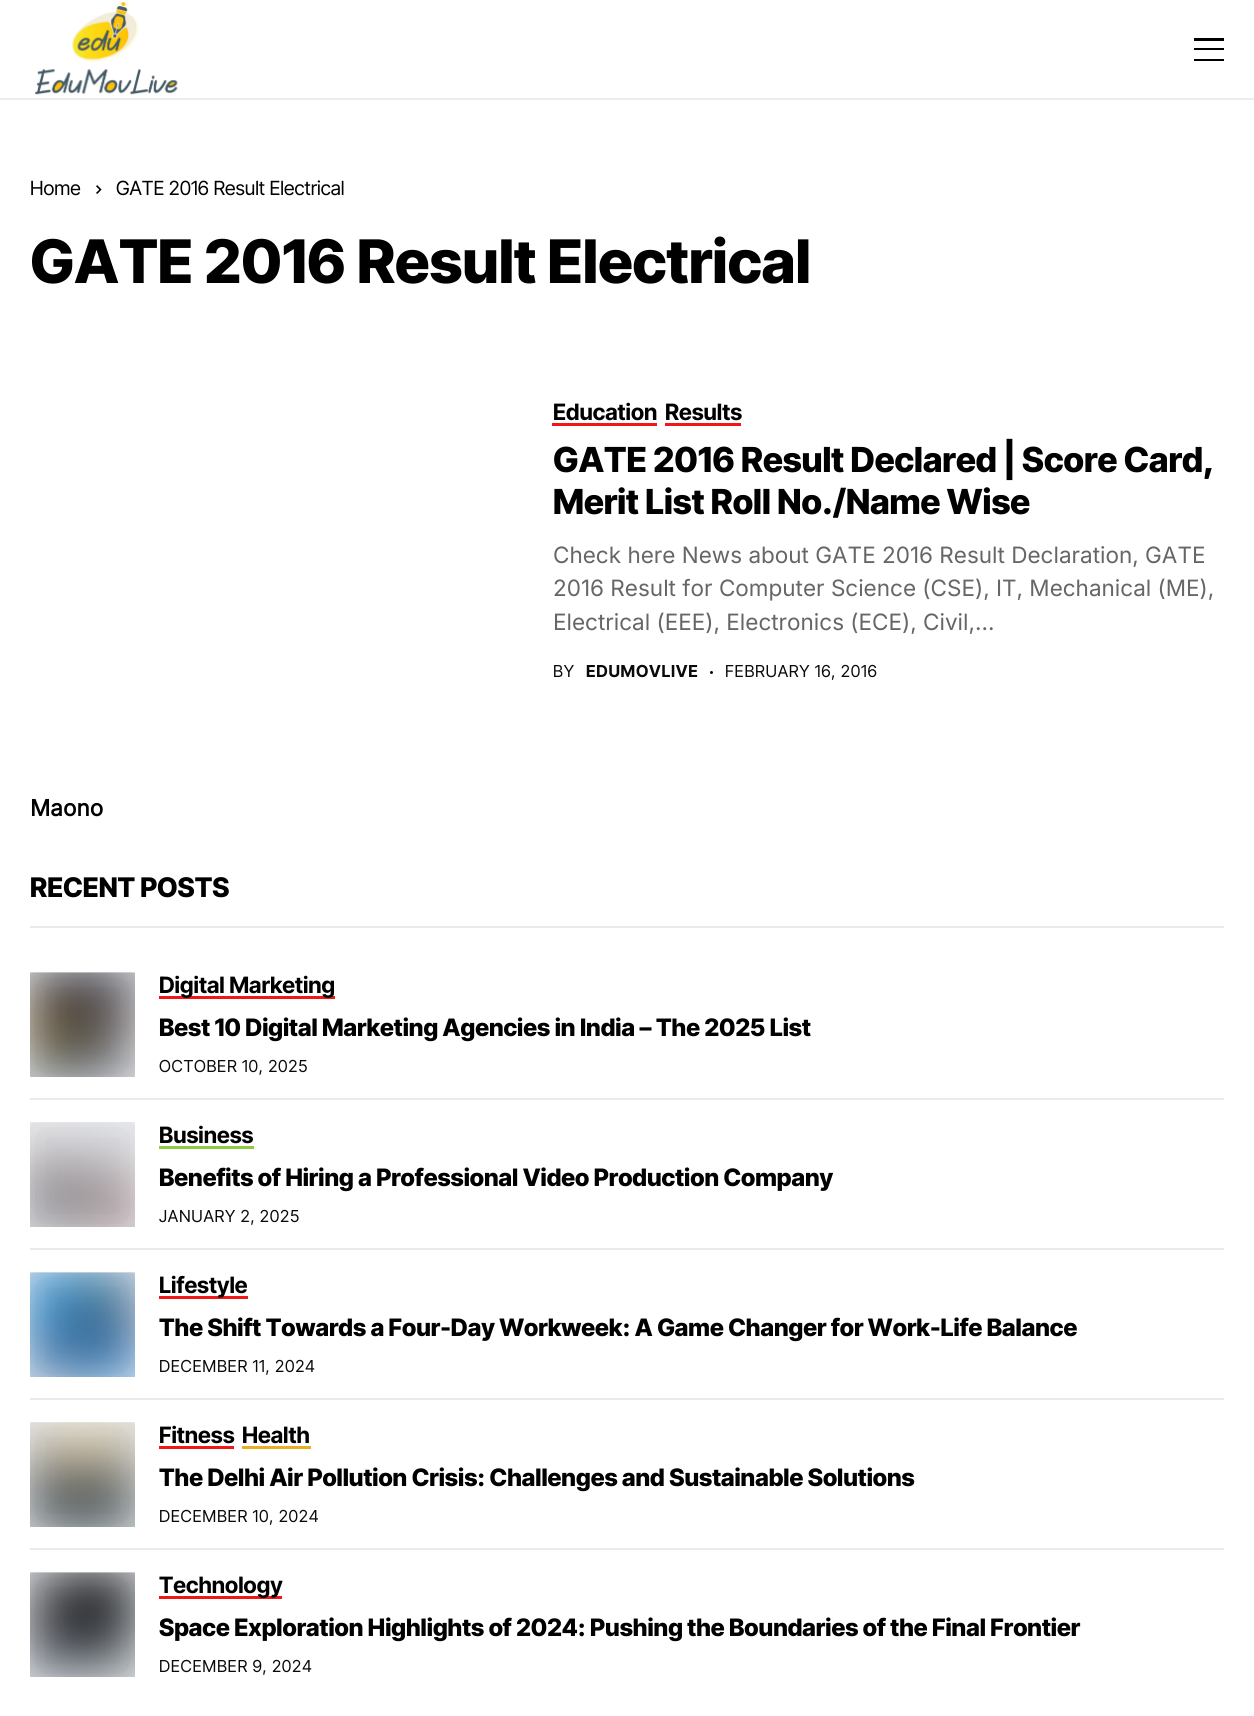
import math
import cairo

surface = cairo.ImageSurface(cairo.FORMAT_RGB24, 1254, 1716)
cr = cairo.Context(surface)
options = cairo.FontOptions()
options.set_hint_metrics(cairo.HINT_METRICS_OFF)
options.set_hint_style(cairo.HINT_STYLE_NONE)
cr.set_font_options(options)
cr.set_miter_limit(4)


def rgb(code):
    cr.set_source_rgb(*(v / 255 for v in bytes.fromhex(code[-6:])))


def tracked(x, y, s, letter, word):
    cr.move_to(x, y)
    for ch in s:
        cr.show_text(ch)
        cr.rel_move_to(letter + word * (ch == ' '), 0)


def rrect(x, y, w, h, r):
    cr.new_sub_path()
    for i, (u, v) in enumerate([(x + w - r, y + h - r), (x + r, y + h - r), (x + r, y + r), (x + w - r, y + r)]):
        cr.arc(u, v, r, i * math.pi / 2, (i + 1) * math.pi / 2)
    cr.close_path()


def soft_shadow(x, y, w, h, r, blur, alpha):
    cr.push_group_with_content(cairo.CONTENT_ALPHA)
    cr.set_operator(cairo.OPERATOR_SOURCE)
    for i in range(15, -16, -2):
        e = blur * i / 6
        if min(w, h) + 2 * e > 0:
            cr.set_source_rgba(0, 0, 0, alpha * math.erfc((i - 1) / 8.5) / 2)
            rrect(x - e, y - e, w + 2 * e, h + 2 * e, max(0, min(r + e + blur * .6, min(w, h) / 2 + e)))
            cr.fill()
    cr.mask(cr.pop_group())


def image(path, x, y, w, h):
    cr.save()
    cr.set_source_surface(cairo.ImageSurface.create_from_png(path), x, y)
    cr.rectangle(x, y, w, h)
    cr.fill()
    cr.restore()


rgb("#ffffff")
cr.paint()
rgb("#eeedeb")
cr.rectangle(0, 98, 1254, 2)
cr.fill()
image("img/1.png", 35, 2, 143, 93)
for x, y, w, h, color in [
    (1194, 38, 30, 3, "#000000"),
    (1194, 48, 30, 2, "#000000"),
    (1194, 59, 30, 2, "#000000"),
]:
    rgb(color)
    cr.rectangle(x, y, w, h)
    cr.fill()
image("img/2.png", 96, 185, 6, 9)
rgb("#f21717")
cr.rectangle(552, 423, 105, 3)
cr.fill()
cr.rectangle(665, 423, 76, 3)
cr.fill()
rgb("#0a0a0a")
cr.arc(711.5, 672.5, 1.5, 0, 2 * math.pi)
cr.fill()
rgb("#e9ecef")
cr.rectangle(30, 926, 1194, 2)
cr.fill()
cr.save()
cr.rectangle(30, 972, 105, 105)
cr.clip()
rgb("#ced4da")
soft_shadow(30, 972, 105, 107, 0, 30, 1)
cr.restore()
image("img/3.png", 30, 972, 105, 105)
rgb("#f21717")
cr.rectangle(159, 996, 176, 3)
cr.fill()
rgb("#e9ecef")
cr.rectangle(30, 1098, 1194, 2)
cr.fill()
cr.save()
cr.rectangle(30, 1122, 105, 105)
cr.clip()
rgb("#ced4da")
soft_shadow(30, 1122, 105, 107, 0, 30, 1)
cr.restore()
image("img/4.png", 30, 1122, 105, 105)
rgb("#8ccc3f")
cr.rectangle(159, 1146, 95, 3)
cr.fill()
rgb("#e9ecef")
cr.rectangle(30, 1248, 1194, 2)
cr.fill()
cr.save()
cr.rectangle(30, 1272, 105, 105)
cr.clip()
rgb("#ced4da")
soft_shadow(30, 1272, 105, 107, 0, 30, 1)
cr.restore()
image("img/5.png", 30, 1272, 105, 105)
rgb("#f21717")
cr.rectangle(159, 1296, 89, 3)
cr.fill()
rgb("#e9ecef")
cr.rectangle(30, 1398, 1194, 2)
cr.fill()
cr.save()
cr.rectangle(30, 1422, 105, 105)
cr.clip()
rgb("#ced4da")
soft_shadow(30, 1422, 105, 107, 0, 30, 1)
cr.restore()
image("img/6.png", 30, 1422, 105, 105)
for x, y, w, h, color in [
    (159, 1446, 75, 3, "#f21717"),
    (242, 1446, 69, 3, "#e8af20"),
    (30, 1548, 1194, 2, "#e9ecef"),
]:
    rgb(color)
    cr.rectangle(x, y, w, h)
    cr.fill()
cr.save()
cr.rectangle(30, 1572, 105, 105)
cr.clip()
rgb("#ced4da")
soft_shadow(30, 1572, 105, 107, 0, 30, 1)
cr.restore()
image("img/7.png", 30, 1572, 105, 105)
rgb("#f21717")
cr.rectangle(159, 1596, 123, 3)
cr.fill()
cr.select_font_face("Inter Tight")
cr.set_font_size(19.5)
rgb("#000000")
cr.move_to(30, 195)
cr.show_text("Home")
cr.move_to(116, 195)
cr.show_text("GATE 2016 Result Electrical")
cr.select_font_face("Inter Tight ExtraBold")
cr.set_font_size(60)
cr.move_to(30, 283)
cr.show_text("GATE 2016 Result Electrical")
cr.select_font_face("Inter Tight", cairo.FONT_SLANT_NORMAL, cairo.FONT_WEIGHT_BOLD)
cr.set_font_size(22.5)
cr.move_to(553, 420)
cr.show_text("Education")
cr.move_to(665, 420)
cr.show_text("Results")
cr.select_font_face("Inter Tight ExtraBold")
cr.set_font_size(34.5)
cr.move_to(553, 472)
cr.show_text("GATE 2016 Result Declared | Score Card,")
cr.move_to(553, 514)
cr.show_text("Merit List Roll No./Name Wise")
cr.select_font_face("Inter")
cr.set_font_size(22.5)
rgb("#666666")
for x, y, s in [
    (553, 563, "Check here News about GATE 2016 Result Declaration, GATE"),
    (553, 596, "2016 Result for Computer Science (CSE), IT, Mechanical (ME),"),
    (553, 630, "Electrical (EEE), Electronics (ECE), Civil,..."),
]:
    cr.move_to(x, y)
    cr.show_text(s)
cr.select_font_face("Inter Tight")
cr.set_font_size(16.5)
rgb("#0a0a0a")
tracked(553, 677, "BY", 0.7, 0)
cr.select_font_face("Inter Tight", cairo.FONT_SLANT_NORMAL, cairo.FONT_WEIGHT_BOLD)
tracked(586, 677, "EDUMOVLIVE", 0.7, 0)
cr.select_font_face("Inter Tight")
tracked(725, 677, "FEBRUARY 16, 2016", 0.7, 0)
cr.select_font_face("Inter", cairo.FONT_SLANT_NORMAL, cairo.FONT_WEIGHT_BOLD)
cr.set_font_size(22.5)
rgb("#000000")
cr.move_to(30, 816)
cr.show_text("Maono")
cr.select_font_face("Inter Tight ExtraBold")
cr.set_font_size(27)
cr.move_to(30, 897)
cr.show_text("RECENT POSTS")
cr.select_font_face("Inter Tight", cairo.FONT_SLANT_NORMAL, cairo.FONT_WEIGHT_BOLD)
cr.set_font_size(22.5)
cr.move_to(159, 993)
cr.show_text("Digital Marketing")
cr.select_font_face("Inter Tight ExtraBold")
cr.set_font_size(24)
cr.move_to(159, 1036)
cr.show_text("Best 10 Digital Marketing Agencies in India – The 2025 List")
cr.select_font_face("Inter Tight")
cr.set_font_size(16.5)
rgb("#0a0a0a")
tracked(159, 1072, "OCTOBER 10, 2025", 0.7, 0)
cr.select_font_face("Inter Tight", cairo.FONT_SLANT_NORMAL, cairo.FONT_WEIGHT_BOLD)
cr.set_font_size(22.5)
rgb("#000000")
cr.move_to(159, 1143)
cr.show_text("Business")
cr.select_font_face("Inter Tight ExtraBold")
cr.set_font_size(24)
cr.move_to(159, 1186)
cr.show_text("Benefits of Hiring a Professional Video Production Company")
cr.select_font_face("Inter Tight")
cr.set_font_size(16.5)
rgb("#0a0a0a")
tracked(159, 1222, "JANUARY 2, 2025", 0.7, 0)
cr.select_font_face("Inter Tight", cairo.FONT_SLANT_NORMAL, cairo.FONT_WEIGHT_BOLD)
cr.set_font_size(22.5)
rgb("#000000")
cr.move_to(159, 1293)
cr.show_text("Lifestyle")
cr.select_font_face("Inter Tight ExtraBold")
cr.set_font_size(24)
cr.move_to(159, 1336)
cr.show_text("The Shift Towards a Four-Day Workweek: A Game Changer for Work-Life Balance")
cr.select_font_face("Inter Tight")
cr.set_font_size(16.5)
rgb("#0a0a0a")
tracked(159, 1372, "DECEMBER 11, 2024", 0.7, 0)
cr.select_font_face("Inter Tight", cairo.FONT_SLANT_NORMAL, cairo.FONT_WEIGHT_BOLD)
cr.set_font_size(22.5)
rgb("#000000")
cr.move_to(159, 1443)
cr.show_text("Fitness")
cr.move_to(242, 1443)
cr.show_text("Health")
cr.select_font_face("Inter Tight ExtraBold")
cr.set_font_size(24)
cr.move_to(159, 1486)
cr.show_text("The Delhi Air Pollution Crisis: Challenges and Sustainable Solutions")
cr.select_font_face("Inter Tight")
cr.set_font_size(16.5)
rgb("#0a0a0a")
tracked(159, 1522, "DECEMBER 10, 2024", 0.7, 0)
cr.select_font_face("Inter Tight", cairo.FONT_SLANT_NORMAL, cairo.FONT_WEIGHT_BOLD)
cr.set_font_size(22.5)
rgb("#000000")
cr.move_to(159, 1593)
cr.show_text("Technology")
cr.select_font_face("Inter Tight ExtraBold")
cr.set_font_size(24)
cr.move_to(159, 1636)
cr.show_text("Space Exploration Highlights of 2024: Pushing the Boundaries of the Final Frontier")
cr.select_font_face("Inter Tight")
cr.set_font_size(16.5)
rgb("#0a0a0a")
tracked(159, 1672, "DECEMBER 9, 2024", 0.7, 0)
surface.write_to_png("page.png")
